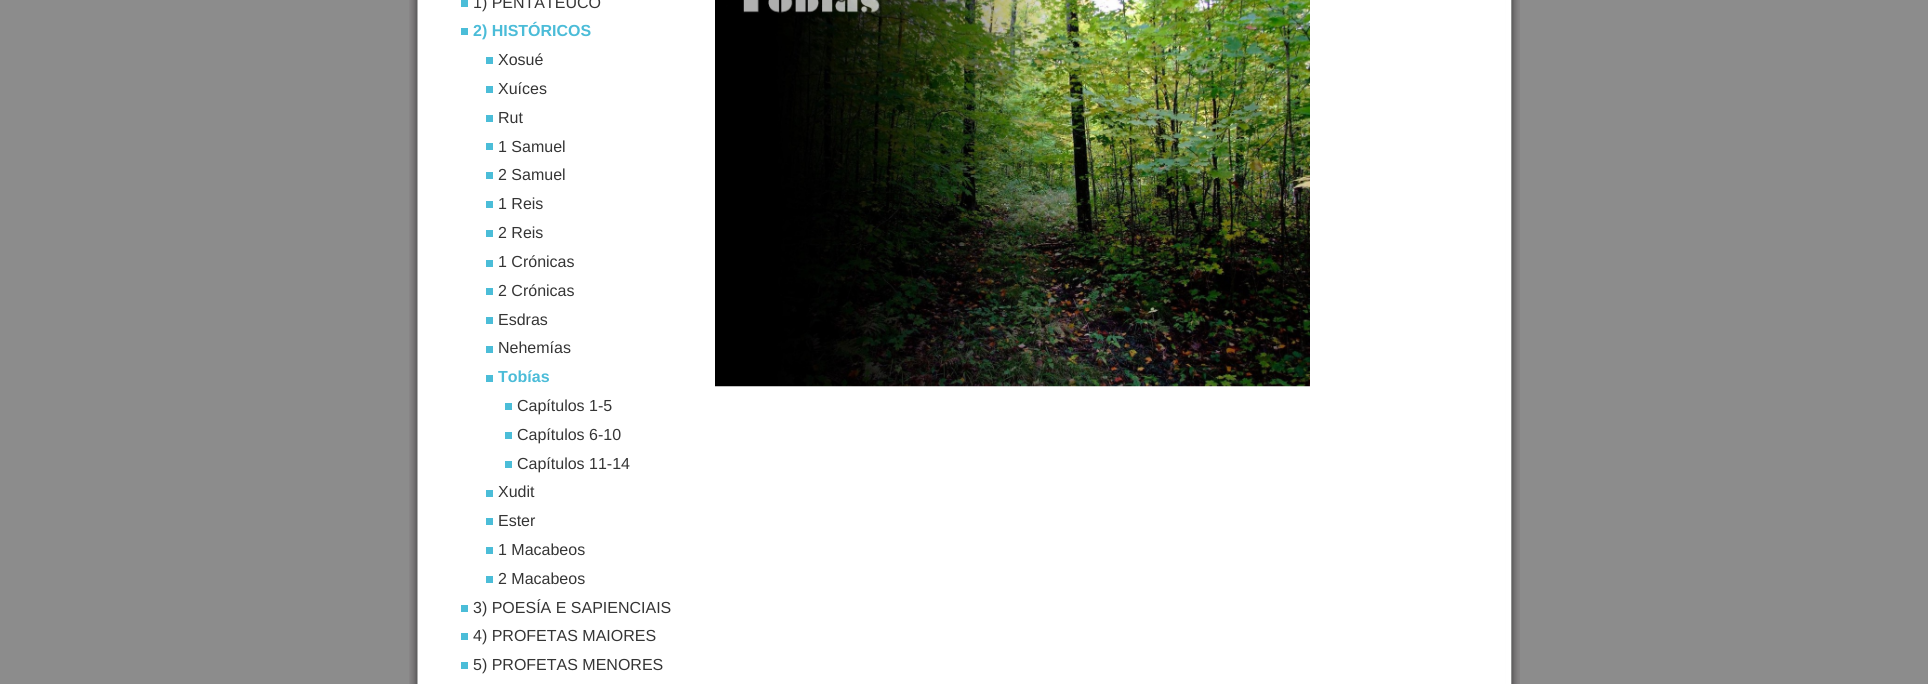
import math
import cairo

surface = cairo.ImageSurface(cairo.FORMAT_RGB24, 1928, 684)
cr = cairo.Context(surface)
options = cairo.FontOptions()
options.set_hint_metrics(cairo.HINT_METRICS_OFF)
options.set_hint_style(cairo.HINT_STYLE_NONE)
cr.set_font_options(options)
cr.set_miter_limit(4)


def rgb(code):
    cr.set_source_rgb(*(v / 255 for v in bytes.fromhex(code[-6:])))


def image(path, x, y, w, h):
    cr.save()
    cr.set_source_surface(cairo.ImageSurface.create_from_png(path), x, y)
    cr.rectangle(x, y, w, h)
    cr.fill()
    cr.restore()


rgb("#8c8c8c")
cr.paint()
image("img/1.png", 409, 0, 1111, 251)
image("img/2.png", 409, 251, 1111, 433)
for x, y, w, h, color in [
    (461, 0, 7, 7, "#4bbdd8"),
    (461, 28, 7, 7, "#4bbdd8"),
    (486, 57, 7, 7, "#4bbdd8"),
    (486, 86, 7, 7, "#4bbdd8"),
    (486, 115, 7, 7, "#4bbdd8"),
    (486, 143, 7, 7, "#4bbdd8"),
    (486, 172, 7, 7, "#4bbdd8"),
    (486, 201, 7, 7, "#4bbdd8"),
    (486, 230, 7, 7, "#4bbdd8"),
    (486, 260, 7, 7, "#4bbdd8"),
    (486, 288, 7, 7, "#4bbdd8"),
    (486, 317, 7, 7, "#4bbdd8"),
    (486, 346, 7, 7, "#4bbdd8"),
    (486, 375, 7, 7, "#4bbdd8"),
    (505, 403, 7, 7, "#4bbdd8"),
    (505, 432, 7, 7, "#4bbdd8"),
    (505, 461, 7, 7, "#4bbdd8"),
    (486, 490, 7, 7, "#4bbdd8"),
    (486, 518, 7, 7, "#4bbdd8"),
    (486, 547, 7, 7, "#4bbdd8"),
    (486, 576, 7, 7, "#4bbdd8"),
    (461, 605, 7, 7, "#4bbdd8"),
    (461, 633, 7, 7, "#4bbdd8"),
    (461, 662, 7, 7, "#4bbdd8"),
]:
    rgb(color)
    cr.rectangle(x, y, w, h)
    cr.fill()
image("img/3.png", 715, 0, 595, 387)
cr.select_font_face("Liberation Sans")
cr.set_font_size(16)
rgb("#353535")
cr.move_to(473, 8)
cr.show_text("1) PENTATEUCO")
cr.select_font_face("Liberation Sans", cairo.FONT_SLANT_NORMAL, cairo.FONT_WEIGHT_BOLD)
rgb("#4bbcd8")
cr.move_to(473, 36)
cr.show_text("2) HISTÓRICOS")
cr.select_font_face("Liberation Sans")
rgb("#353535")
for x, y, s in [
    (498, 65, "Xosué"),
    (498, 94, "Xuíces"),
    (498, 123, "Rut"),
    (498, 152, "1 Samuel"),
    (498, 180, "2 Samuel"),
    (498, 209, "1 Reis"),
    (498, 238, "2 Reis"),
    (498, 267, "1 Crónicas"),
    (498, 296, "2 Crónicas"),
    (498, 325, "Esdras"),
    (498, 353, "Nehemías"),
]:
    cr.move_to(x, y)
    cr.show_text(s)
cr.select_font_face("Liberation Sans", cairo.FONT_SLANT_NORMAL, cairo.FONT_WEIGHT_BOLD)
rgb("#4bbcd8")
cr.move_to(498, 382)
cr.show_text("Tobías")
cr.select_font_face("Liberation Sans")
rgb("#353535")
for x, y, s in [
    (517, 411, "Capítulos 1-5"),
    (517, 440, "Capítulos 6-10"),
    (517, 469, "Capítulos 11-14"),
    (498, 497, "Xudit"),
    (498, 526, "Ester"),
    (498, 555, "1 Macabeos"),
    (498, 584, "2 Macabeos"),
    (473, 613, "3) POESÍA E SAPIENCIAIS"),
    (473, 641, "4) PROFETAS MAIORES"),
    (473, 670, "5) PROFETAS MENORES"),
]:
    cr.move_to(x, y)
    cr.show_text(s)
surface.write_to_png("page.png")
